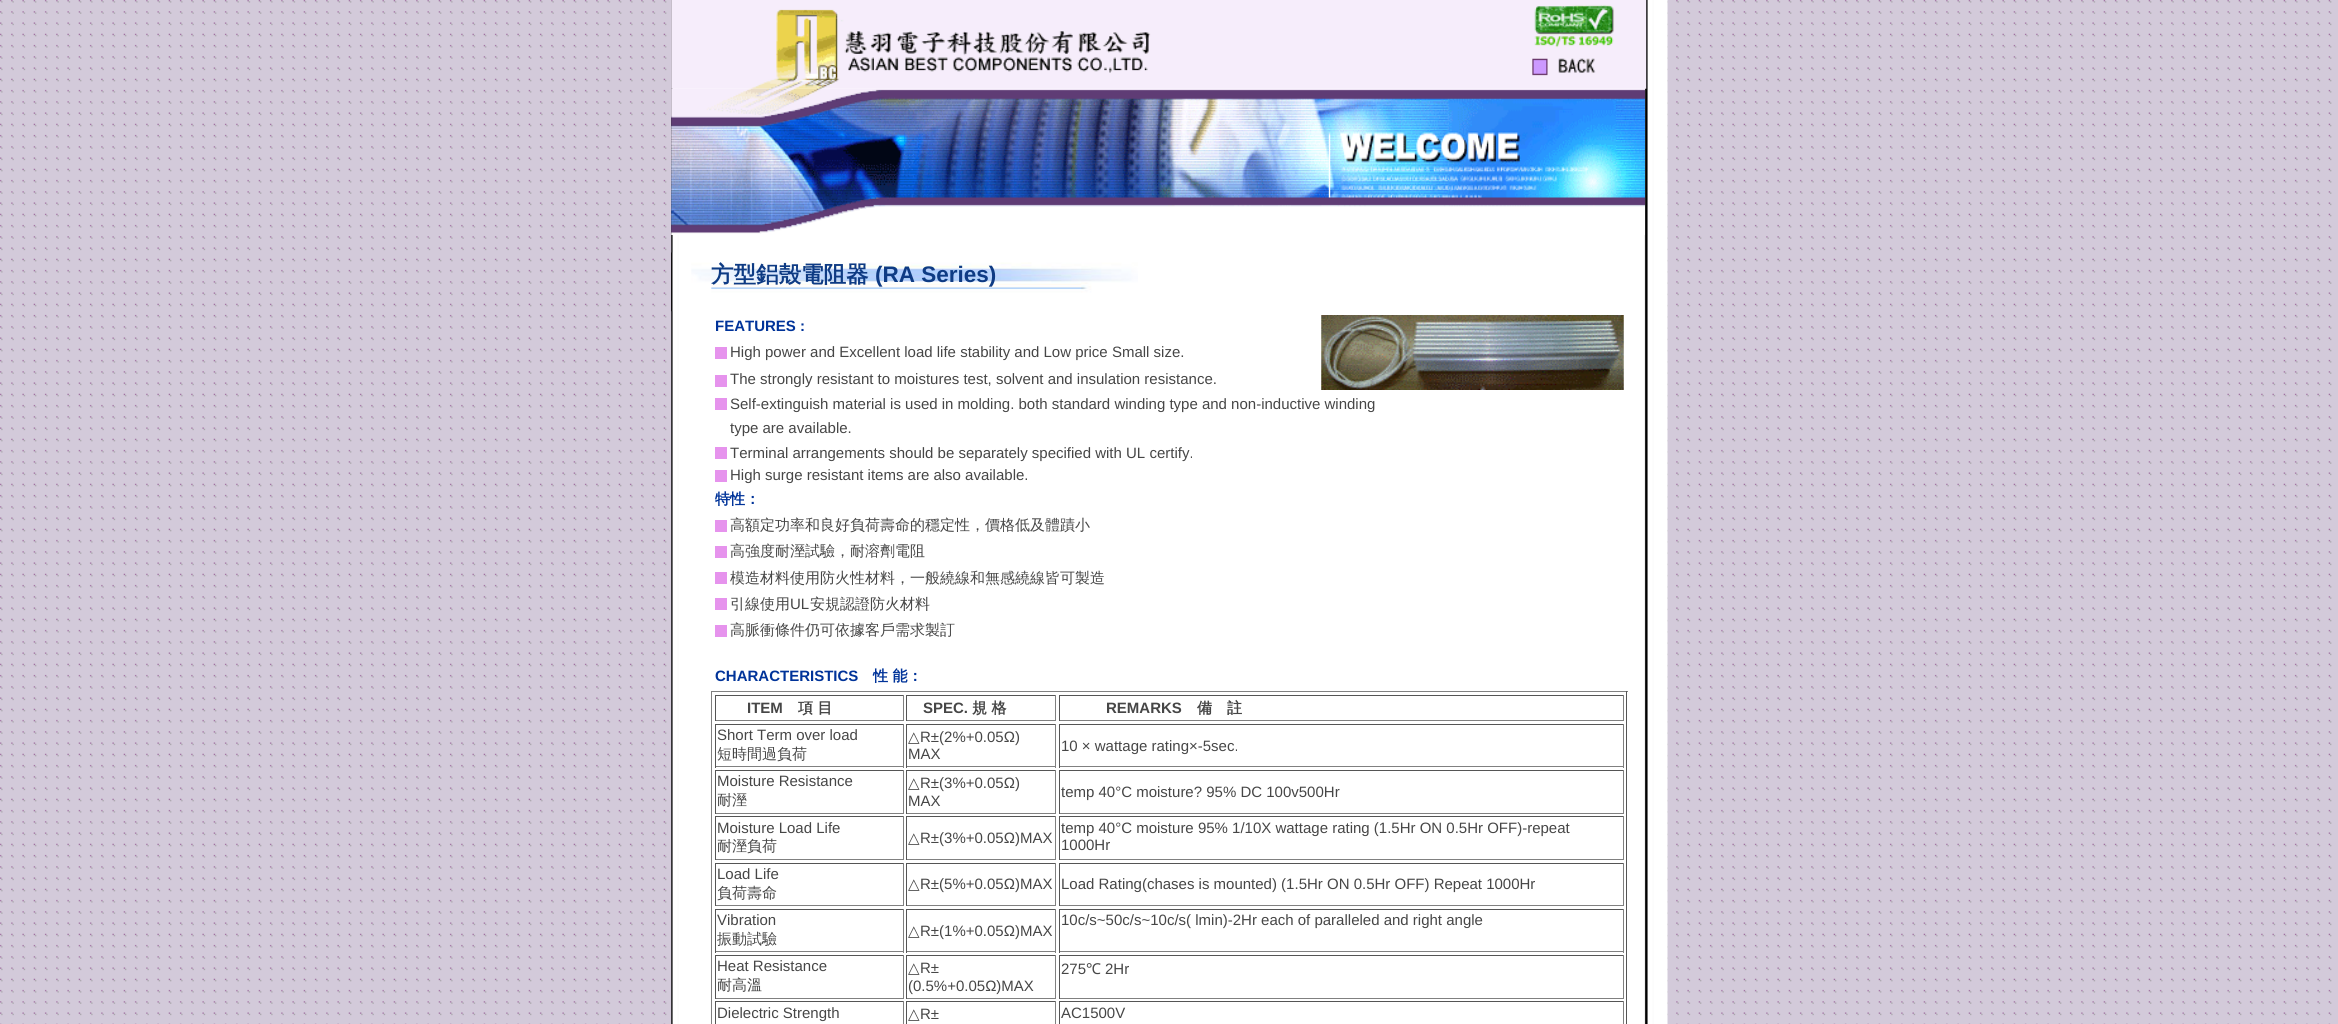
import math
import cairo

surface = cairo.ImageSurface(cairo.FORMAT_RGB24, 2338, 1024)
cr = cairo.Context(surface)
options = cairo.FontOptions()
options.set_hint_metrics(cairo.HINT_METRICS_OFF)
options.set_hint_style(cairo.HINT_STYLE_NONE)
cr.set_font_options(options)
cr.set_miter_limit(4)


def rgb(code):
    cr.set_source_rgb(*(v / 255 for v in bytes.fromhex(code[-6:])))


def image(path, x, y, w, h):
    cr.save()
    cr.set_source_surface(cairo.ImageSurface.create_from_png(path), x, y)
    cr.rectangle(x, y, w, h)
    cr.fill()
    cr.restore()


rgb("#ffffff")
cr.paint()
image("img/1.png", 0, 0, 2338, 1024)
image("img/2.png", 671, 0, 997, 1024)
image("img/3.png", 671, 0, 976, 89)
image("img/4.png", 671, 88, 974, 147)
image("img/5.png", 671, 252, 467, 60)
image("img/6.png", 1321, 315, 303, 75)
for x, y, w, h, color in [
    (715, 347, 12, 12, "#e693ed"),
    (715, 375, 12, 12, "#e693ed"),
    (715, 398, 12, 12, "#e693ed"),
    (715, 447, 12, 12, "#e693ed"),
    (715, 470, 12, 12, "#e693ed"),
    (715, 520, 12, 12, "#e693ed"),
    (715, 546, 12, 12, "#e693ed"),
    (715, 572, 12, 12, "#e693ed"),
    (715, 598, 12, 12, "#e693ed"),
    (715, 625, 12, 12, "#e693ed"),
    (711, 691, 917, 1, "#808080"),
    (1626, 691, 1, 333, "#555555"),
    (711, 691, 1, 333, "#808080"),
    (715, 695, 189, 1, "#555555"),
    (903, 695, 1, 26, "#808080"),
    (715, 720, 189, 1, "#808080"),
    (715, 695, 1, 26, "#555555"),
    (906, 695, 150, 1, "#555555"),
    (1055, 695, 1, 26, "#808080"),
    (906, 720, 150, 1, "#808080"),
    (906, 695, 1, 26, "#555555"),
    (1059, 695, 565, 1, "#555555"),
    (1623, 695, 1, 26, "#808080"),
    (1059, 720, 565, 1, "#808080"),
    (1059, 695, 1, 26, "#555555"),
    (715, 724, 189, 1, "#555555"),
    (903, 724, 1, 44, "#808080"),
    (715, 766, 189, 1, "#808080"),
    (715, 724, 1, 44, "#555555"),
    (906, 724, 150, 1, "#555555"),
    (1055, 724, 1, 44, "#808080"),
    (906, 766, 150, 1, "#808080"),
    (906, 724, 1, 44, "#555555"),
    (1059, 724, 565, 1, "#555555"),
    (1623, 724, 1, 44, "#808080"),
    (1059, 766, 565, 1, "#808080"),
    (1059, 724, 1, 44, "#555555"),
    (715, 770, 189, 1, "#555555"),
    (903, 770, 1, 44, "#808080"),
    (715, 813, 189, 1, "#808080"),
    (715, 770, 1, 44, "#555555"),
    (906, 770, 150, 1, "#555555"),
    (1055, 770, 1, 44, "#808080"),
    (906, 813, 150, 1, "#808080"),
    (906, 770, 1, 44, "#555555"),
    (1059, 770, 565, 1, "#555555"),
    (1623, 770, 1, 44, "#808080"),
    (1059, 813, 565, 1, "#808080"),
    (1059, 770, 1, 44, "#555555"),
    (715, 816, 189, 1, "#555555"),
    (903, 816, 1, 44, "#808080"),
    (715, 859, 189, 1, "#808080"),
    (715, 816, 1, 44, "#555555"),
    (906, 816, 150, 1, "#555555"),
    (1055, 816, 1, 44, "#808080"),
    (906, 859, 150, 1, "#808080"),
    (906, 816, 1, 44, "#555555"),
    (1059, 816, 565, 1, "#555555"),
    (1623, 816, 1, 44, "#808080"),
    (1059, 859, 565, 1, "#808080"),
    (1059, 816, 1, 44, "#555555"),
    (715, 863, 189, 1, "#555555"),
    (903, 863, 1, 43, "#808080"),
    (715, 905, 189, 1, "#808080"),
    (715, 863, 1, 43, "#555555"),
    (906, 863, 150, 1, "#555555"),
    (1055, 863, 1, 43, "#808080"),
    (906, 905, 150, 1, "#808080"),
    (906, 863, 1, 43, "#555555"),
    (1059, 863, 565, 1, "#555555"),
    (1623, 863, 1, 43, "#808080"),
    (1059, 905, 565, 1, "#808080"),
    (1059, 863, 1, 43, "#555555"),
    (715, 909, 189, 1, "#555555"),
    (903, 909, 1, 44, "#808080"),
    (715, 951, 189, 1, "#808080"),
    (715, 909, 1, 44, "#555555"),
    (1059, 909, 565, 1, "#555555"),
    (1623, 909, 1, 44, "#808080"),
    (1059, 951, 565, 1, "#808080"),
    (1059, 909, 1, 44, "#555555"),
    (906, 909, 150, 1, "#555555"),
    (1055, 909, 1, 44, "#808080"),
    (906, 951, 150, 1, "#808080"),
    (906, 909, 1, 44, "#555555"),
    (715, 955, 189, 1, "#555555"),
    (903, 955, 1, 44, "#808080"),
    (715, 998, 189, 1, "#808080"),
    (715, 955, 1, 44, "#555555"),
    (906, 955, 150, 1, "#555555"),
    (1055, 955, 1, 44, "#808080"),
    (906, 998, 150, 1, "#808080"),
    (906, 955, 1, 44, "#555555"),
    (1059, 955, 565, 1, "#555555"),
    (1623, 955, 1, 44, "#808080"),
    (1059, 998, 565, 1, "#808080"),
    (1059, 955, 1, 44, "#555555"),
    (715, 1001, 189, 1, "#555555"),
    (903, 1001, 1, 23, "#808080"),
    (715, 1001, 1, 23, "#555555"),
    (906, 1001, 150, 1, "#555555"),
    (1055, 1001, 1, 23, "#808080"),
    (906, 1001, 1, 23, "#555555"),
    (1059, 1001, 565, 1, "#555555"),
    (1623, 1001, 1, 23, "#808080"),
    (1059, 1001, 1, 23, "#555555"),
]:
    rgb(color)
    cr.rectangle(x, y, w, h)
    cr.fill()
cr.select_font_face("WenQuanYi Zen Hei", cairo.FONT_SLANT_NORMAL, cairo.FONT_WEIGHT_BOLD)
cr.set_font_size(22.5)
rgb("#0e3b84")
cr.move_to(711, 282)
cr.show_text("方型鋁殼電阻器")
cr.select_font_face("Liberation Sans", cairo.FONT_SLANT_NORMAL, cairo.FONT_WEIGHT_BOLD)
cr.move_to(875, 282)
cr.show_text("(RA Series)")
cr.set_font_size(15)
rgb("#003399")
cr.move_to(715, 331)
cr.show_text("FEATURES :")
cr.select_font_face("Liberation Sans")
rgb("#464646")
for x, y, s in [
    (730, 357, "High power and Excellent load life stability and Low price Small size."),
    (730, 384, "The strongly resistant to moistures test, solvent and insulation resistance."),
    (730, 409, "Self-extinguish material is used in molding. both standard winding type and non-inductive winding"),
    (730, 433, "type are available."),
    (730, 458, "Terminal arrangements should be separately specified with UL certify."),
    (730, 480, "High surge resistant items are also available."),
]:
    cr.move_to(x, y)
    cr.show_text(s)
cr.select_font_face("WenQuanYi Zen Hei", cairo.FONT_SLANT_NORMAL, cairo.FONT_WEIGHT_BOLD)
rgb("#003399")
cr.move_to(715, 504)
cr.show_text("特性：")
cr.select_font_face("WenQuanYi Zen Hei Medium")
rgb("#464646")
for x, y, s in [
    (730, 530, "高額定功率和良好負荷壽命的穩定性，價格低及體蹟小"),
    (730, 556, "高強度耐溼試驗，耐溶劑電阻"),
    (730, 583, "模造材料使用防火性材料，一般繞線和無感繞線皆可製造"),
    (730, 609, "引線使用"),
]:
    cr.move_to(x, y)
    cr.show_text(s)
cr.select_font_face("Liberation Sans")
cr.move_to(790, 609)
cr.show_text("UL")
cr.select_font_face("WenQuanYi Zen Hei Medium")
cr.move_to(810, 609)
cr.show_text("安規認證防火材料")
cr.move_to(730, 635)
cr.show_text("高脈衝條件仍可依據客戶需求製訂")
cr.select_font_face("Liberation Sans", cairo.FONT_SLANT_NORMAL, cairo.FONT_WEIGHT_BOLD)
rgb("#003399")
cr.move_to(715, 681)
cr.show_text("CHARACTERISTICS")
cr.select_font_face("WenQuanYi Zen Hei", cairo.FONT_SLANT_NORMAL, cairo.FONT_WEIGHT_BOLD)
cr.move_to(873, 681)
cr.show_text("性 能：")
cr.select_font_face("Liberation Sans", cairo.FONT_SLANT_NORMAL, cairo.FONT_WEIGHT_BOLD)
rgb("#464646")
cr.move_to(747, 713)
cr.show_text("ITEM")
cr.select_font_face("WenQuanYi Zen Hei", cairo.FONT_SLANT_NORMAL, cairo.FONT_WEIGHT_BOLD)
cr.move_to(798, 713)
cr.show_text("項 目")
cr.select_font_face("Liberation Sans", cairo.FONT_SLANT_NORMAL, cairo.FONT_WEIGHT_BOLD)
cr.move_to(923, 713)
cr.show_text("SPEC.")
cr.select_font_face("WenQuanYi Zen Hei", cairo.FONT_SLANT_NORMAL, cairo.FONT_WEIGHT_BOLD)
cr.move_to(972, 713)
cr.show_text("規 格")
cr.select_font_face("Liberation Sans", cairo.FONT_SLANT_NORMAL, cairo.FONT_WEIGHT_BOLD)
cr.move_to(1106, 713)
cr.show_text("REMARKS")
cr.select_font_face("WenQuanYi Zen Hei", cairo.FONT_SLANT_NORMAL, cairo.FONT_WEIGHT_BOLD)
cr.move_to(1197, 713)
cr.show_text("備　註")
cr.select_font_face("Liberation Sans")
cr.move_to(717, 740)
cr.show_text("Short Term over load")
cr.select_font_face("WenQuanYi Zen Hei Medium")
cr.move_to(717, 759)
cr.show_text("短時間過負荷")
cr.select_font_face("DejaVu Sans")
cr.move_to(908, 742)
cr.show_text("△")
cr.select_font_face("Liberation Sans")
for x, y, s in [
    (920, 742, "R±(2%+0.05Ω)"),
    (908, 759, "MAX"),
    (1061, 751, "10 × wattage rating×-5sec."),
    (717, 786, "Moisture Resistance"),
]:
    cr.move_to(x, y)
    cr.show_text(s)
cr.select_font_face("WenQuanYi Zen Hei Medium")
cr.move_to(717, 805)
cr.show_text("耐溼")
cr.select_font_face("DejaVu Sans")
cr.move_to(908, 788)
cr.show_text("△")
cr.select_font_face("Liberation Sans")
for x, y, s in [
    (920, 788, "R±(3%+0.05Ω)"),
    (908, 806, "MAX"),
    (1061, 797, "temp 40°C moisture? 95% DC 100v500Hr"),
    (717, 833, "Moisture Load Life"),
]:
    cr.move_to(x, y)
    cr.show_text(s)
cr.select_font_face("WenQuanYi Zen Hei Medium")
cr.move_to(717, 851)
cr.show_text("耐溼負荷")
cr.select_font_face("DejaVu Sans")
cr.move_to(908, 843)
cr.show_text("△")
cr.select_font_face("Liberation Sans")
for x, y, s in [
    (920, 843, "R±(3%+0.05Ω)MAX"),
    (1061, 833, "temp 40°C moisture 95% 1/10X wattage rating (1.5Hr ON 0.5Hr OFF)-repeat"),
    (1061, 850, "1000Hr"),
    (717, 879, "Load Life"),
]:
    cr.move_to(x, y)
    cr.show_text(s)
cr.select_font_face("WenQuanYi Zen Hei Medium")
cr.move_to(717, 898)
cr.show_text("負荷壽命")
cr.select_font_face("DejaVu Sans")
cr.move_to(908, 889)
cr.show_text("△")
cr.select_font_face("Liberation Sans")
for x, y, s in [
    (920, 889, "R±(5%+0.05Ω)MAX"),
    (1061, 889, "Load Rating(chases is mounted) (1.5Hr ON 0.5Hr OFF) Repeat 1000Hr"),
    (717, 925, "Vibration"),
]:
    cr.move_to(x, y)
    cr.show_text(s)
cr.select_font_face("WenQuanYi Zen Hei Medium")
cr.move_to(717, 944)
cr.show_text("振動試驗")
cr.select_font_face("Liberation Sans")
cr.move_to(1061, 925)
cr.show_text("10c/s~50c/s~10c/s( lmin)-2Hr each of paralleled and right angle")
cr.select_font_face("DejaVu Sans")
cr.move_to(908, 936)
cr.show_text("△")
cr.select_font_face("Liberation Sans")
cr.move_to(920, 936)
cr.show_text("R±(1%+0.05Ω)MAX")
cr.move_to(717, 971)
cr.show_text("Heat Resistance")
cr.select_font_face("WenQuanYi Zen Hei Medium")
cr.move_to(717, 990)
cr.show_text("耐高溫")
cr.select_font_face("DejaVu Sans")
cr.move_to(908, 973)
cr.show_text("△")
cr.select_font_face("Liberation Sans")
for x, y, s in [
    (920, 973, "R±"),
    (908, 991, "(0.5%+0.05Ω)MAX"),
    (1061, 974, "275"),
]:
    cr.move_to(x, y)
    cr.show_text(s)
cr.select_font_face("Noto Sans")
cr.move_to(1086, 974)
cr.show_text("℃")
cr.select_font_face("Liberation Sans")
cr.move_to(1105, 974)
cr.show_text("2Hr")
cr.move_to(717, 1018)
cr.show_text("Dielectric Strength")
cr.select_font_face("DejaVu Sans")
cr.move_to(908, 1019)
cr.show_text("△")
cr.select_font_face("Liberation Sans")
cr.move_to(920, 1019)
cr.show_text("R±")
cr.move_to(1061, 1018)
cr.show_text("AC1500V")
surface.write_to_png("page.png")
